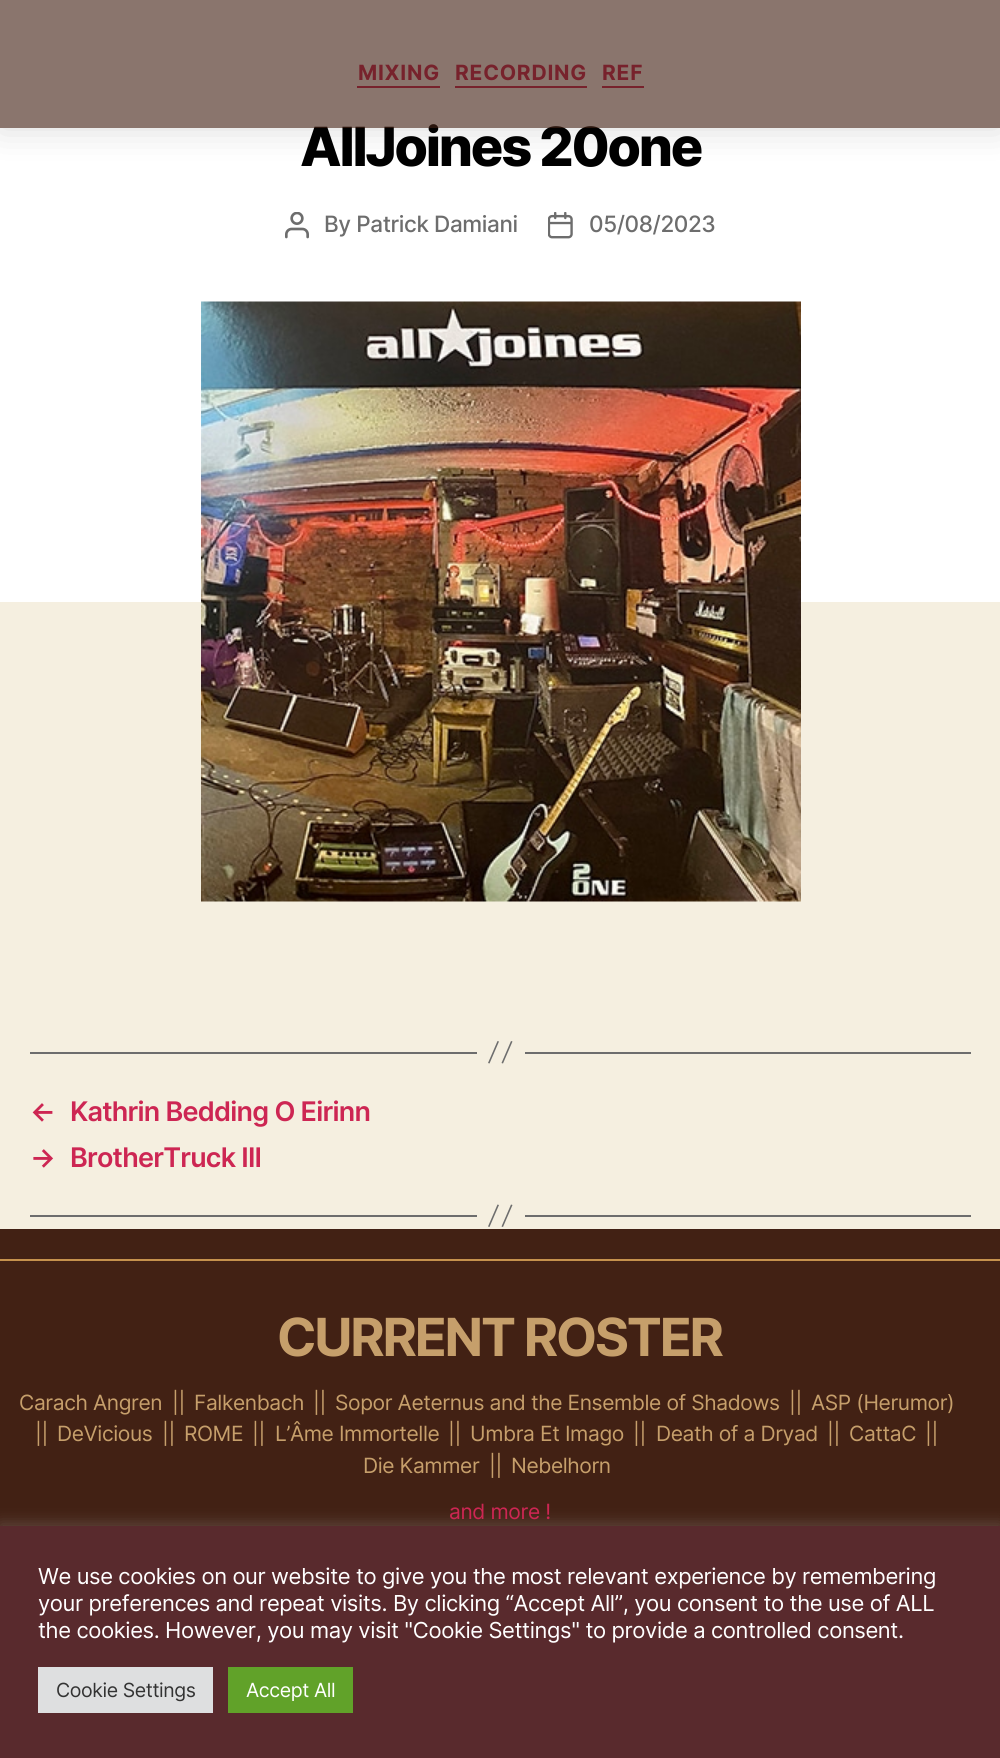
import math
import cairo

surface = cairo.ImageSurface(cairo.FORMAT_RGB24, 1000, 1758)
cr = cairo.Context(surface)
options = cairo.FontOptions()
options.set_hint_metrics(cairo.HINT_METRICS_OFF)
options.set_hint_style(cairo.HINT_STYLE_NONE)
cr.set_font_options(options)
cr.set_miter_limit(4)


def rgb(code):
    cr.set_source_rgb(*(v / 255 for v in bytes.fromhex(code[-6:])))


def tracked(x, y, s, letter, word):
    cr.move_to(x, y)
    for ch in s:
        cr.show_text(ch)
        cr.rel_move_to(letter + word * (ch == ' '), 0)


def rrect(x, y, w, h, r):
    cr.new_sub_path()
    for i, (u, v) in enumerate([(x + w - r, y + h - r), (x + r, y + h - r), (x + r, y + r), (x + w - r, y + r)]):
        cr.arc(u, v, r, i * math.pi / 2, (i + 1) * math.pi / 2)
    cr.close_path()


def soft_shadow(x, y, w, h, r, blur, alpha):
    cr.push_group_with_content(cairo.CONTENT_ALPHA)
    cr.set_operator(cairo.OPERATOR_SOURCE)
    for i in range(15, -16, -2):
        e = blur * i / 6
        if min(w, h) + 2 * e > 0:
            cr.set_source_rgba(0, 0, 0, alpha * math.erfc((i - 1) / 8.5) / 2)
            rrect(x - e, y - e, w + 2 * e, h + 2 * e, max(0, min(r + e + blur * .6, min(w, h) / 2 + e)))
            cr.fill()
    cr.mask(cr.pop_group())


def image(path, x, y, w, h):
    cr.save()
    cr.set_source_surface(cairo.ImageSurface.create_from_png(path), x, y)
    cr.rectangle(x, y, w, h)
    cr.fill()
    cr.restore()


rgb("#f5efe0")
cr.paint()
for x, y, w, h, color in [
    (0, 0, 1000, 602, "#ffffff"),
    (357, 86, 83, 2, "#cd2653"),
    (455, 86, 132, 2, "#cd2653"),
    (602, 86, 42, 2, "#cd2653"),
]:
    rgb(color)
    cr.rectangle(x, y, w, h)
    cr.fill()
cr.save()
cr.set_fill_rule(cairo.FILL_RULE_EVEN_ODD)
cr.new_path()
cr.move_to(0, 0)
cr.line_to(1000, 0)
cr.line_to(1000, 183)
cr.line_to(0, 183)
cr.close_path()
cr.move_to(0, 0)
cr.line_to(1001, 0)
cr.line_to(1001, 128)
cr.line_to(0, 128)
cr.close_path()
cr.clip()
rgb("#000000")
soft_shadow(0, 0, 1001, 128, 0, 18, 0.15)
cr.restore()
image("img/1.png", 285, 212, 24, 27)
image("img/2.png", 548, 212, 25, 27)
image("img/3.png", 201, 301, 600, 601)
rgb("#6d6d6d")
cr.rectangle(525, 1052, 446, 2)
cr.fill()
cr.rectangle(30, 1052, 447, 2)
cr.fill()
cr.new_path()
cr.move_to(497.5, 1041)
cr.line_to(499, 1041.5)
cr.line_to(489.5, 1063.5)
cr.line_to(488, 1063)
cr.close_path()
cr.move_to(511, 1041)
cr.line_to(512.5, 1041.5)
cr.line_to(503, 1063.5)
cr.line_to(501.5, 1063)
cr.close_path()
cr.fill()
cr.rectangle(525, 1215, 446, 2)
cr.fill()
cr.rectangle(30, 1215, 447, 2)
cr.fill()
cr.new_path()
cr.move_to(497.5, 1204.5)
cr.line_to(499, 1205)
cr.line_to(489.5, 1227)
cr.line_to(488, 1226.5)
cr.close_path()
cr.move_to(511, 1204.5)
cr.line_to(512.5, 1205)
cr.line_to(503, 1227)
cr.line_to(501.5, 1226.5)
cr.close_path()
cr.fill()
rgb("#422114")
cr.rectangle(0, 1229, 1000, 297)
cr.fill()
rgb("#c6924d")
cr.rectangle(0, 1259, 1000, 2)
cr.fill()
rgb("#acabab")
soft_shadow(0, 1524, 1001, 233, 0, 7.5, 0.3)
for x, y, w, h, color in [
    (0, 1526, 1000, 232, "#592a2d"),
    (38, 1667, 175, 46, "#dedfe0"),
    (228, 1667, 125, 46, "#61a229"),
]:
    rgb(color)
    cr.rectangle(x, y, w, h)
    cr.fill()
cr.select_font_face("Inter", cairo.FONT_SLANT_NORMAL, cairo.FONT_WEIGHT_BOLD)
cr.set_font_size(21)
rgb("#cd2653")
for x, y, s in [
    (358, 80, "MIXING"),
    (455, 80, "RECORDING"),
    (602, 80, "REF"),
]:
    tracked(x, y, s, 0.75, 0)
cr.select_font_face("Inter ExtraBold")
cr.set_font_size(54)
rgb("#000000")
tracked(300, 166, "AllJoines 20one", -2.25, 0)
cr.set_source_rgba(0.259, 0.129, 0.078, 0.62)
cr.rectangle(0, 0, 1000, 128)
cr.fill()
cr.select_font_face("Inter Medium")
cr.set_font_size(22.5)
rgb("#6d6d6d")
tracked(324, 232, "By Patrick Damiani", -0.4, 0)
tracked(589, 232, "05/08/2023", -0.4, 0)
cr.select_font_face("Inter SemiBold")
cr.set_font_size(27)
rgb("#cd2653")
for x, y, s in [
    (30, 1121, "←"),
    (70, 1121, "Kathrin Bedding O Eirinn"),
    (30, 1167, "→"),
    (70, 1167, "BrotherTruck III"),
]:
    tracked(x, y, s, -0.75, 0)
cr.select_font_face("Inter", cairo.FONT_SLANT_NORMAL, cairo.FONT_WEIGHT_BOLD)
cr.set_font_size(52.5)
rgb("#c69f6b")
tracked(277, 1356, "CURRENT ROSTER", -2.25, 0)
cr.select_font_face("Inter")
cr.set_font_size(21)
for x, y, s in [
    (19, 1410, "Carach Angren"),
    (172, 1410, "||"),
    (194, 1410, "Falkenbach"),
    (313, 1410, "||"),
    (335, 1410, "Sopor Aeternus and the Ensemble of Shadows"),
    (789, 1410, "||"),
    (811, 1410, "ASP (Herumor)"),
    (35, 1441, "||"),
    (57, 1441, "DeVicious"),
    (162, 1441, "||"),
    (184, 1441, "ROME"),
    (252, 1441, "||"),
    (275, 1441, "L’Âme Immortelle"),
    (448, 1441, "||"),
    (470, 1441, "Umbra Et Imago"),
    (633, 1441, "||"),
    (656, 1441, "Death of a Dryad"),
    (827, 1441, "||"),
    (849, 1441, "CattaC"),
    (925, 1441, "||"),
    (363, 1473, "Die Kammer"),
    (489, 1473, "||"),
    (511, 1473, "Nebelhorn"),
]:
    tracked(x, y, s, -0.4, 0)
rgb("#cd2653")
tracked(449, 1519, "and more !", -0.4, 0)
cr.set_font_size(22)
rgb("#ffffff")
for x, y, s in [
    (38, 1584, "We use cookies on our website to give you the most relevant experience by remembering"),
    (38, 1611, "your preferences and repeat visits. By clicking “Accept All”, you consent to the use of ALL"),
    (38, 1638, "the cookies. However, you may visit \"Cookie Settings\" to provide a controlled consent."),
]:
    tracked(x, y, s, -0.4, 0)
cr.set_font_size(19.5)
rgb("#333333")
tracked(56, 1697, "Cookie Settings", -0.4, 0)
rgb("#ffffff")
tracked(246, 1697, "Accept All", -0.4, 0)
surface.write_to_png("page.png")
